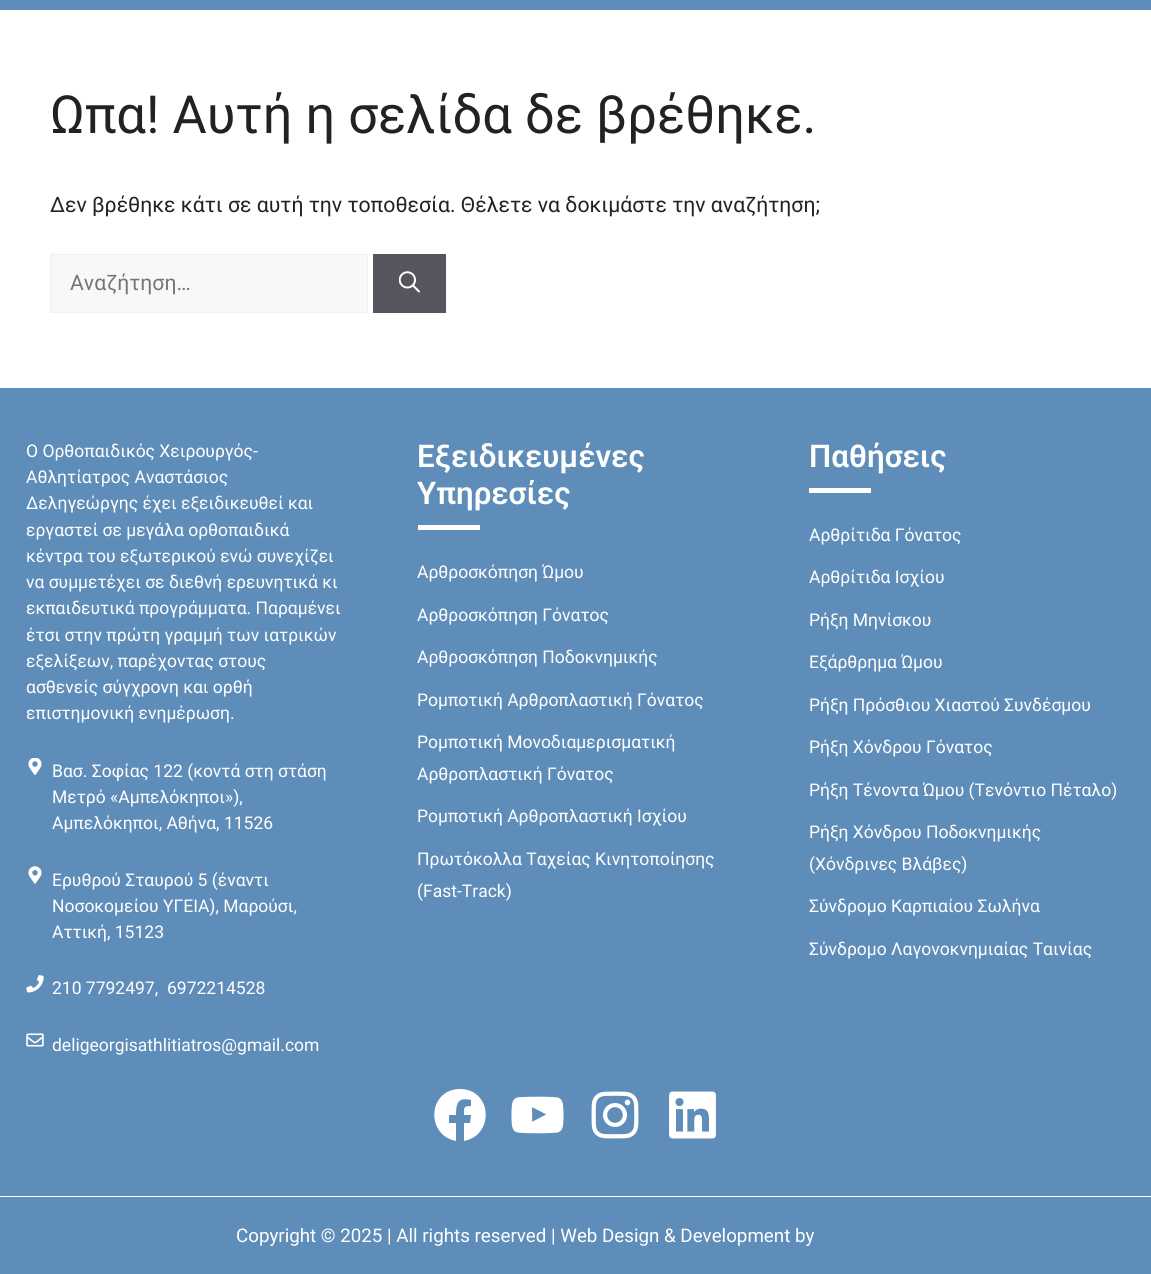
import math
import cairo

surface = cairo.ImageSurface(cairo.FORMAT_RGB24, 1151, 1274)
cr = cairo.Context(surface)
options = cairo.FontOptions()
options.set_hint_metrics(cairo.HINT_METRICS_OFF)
options.set_hint_style(cairo.HINT_STYLE_NONE)
cr.set_font_options(options)
cr.set_miter_limit(4)


def rgb(code):
    cr.set_source_rgb(*(v / 255 for v in bytes.fromhex(code[-6:])))


def image(path, x, y, w, h):
    cr.save()
    cr.set_source_surface(cairo.ImageSurface.create_from_png(path), x, y)
    cr.rectangle(x, y, w, h)
    cr.fill()
    cr.restore()


rgb("#ffffff")
cr.paint()
rgb("#5e8db9")
cr.rectangle(0, 0, 1151, 10)
cr.fill()
rgb("#f7f8f9")
cr.rectangle(50.5, 254.5, 317, 58)
cr.fill_preserve()
rgb("#f0f0f0")
cr.set_line_width(1)
cr.stroke()
rgb("#55555e")
cr.rectangle(373, 254, 73, 59)
cr.fill()
image("img/1.png", 399, 271, 21, 22)
rgb("#5e8db9")
cr.rectangle(0, 388, 1151, 808)
cr.fill()
image("img/2.png", 28, 758, 14, 17)
image("img/3.png", 28, 866, 14, 18)
image("img/4.png", 26, 975, 18, 18)
image("img/5.png", 26, 1033, 18, 14)
rgb("#ffffff")
cr.rectangle(418, 525, 62, 5)
cr.fill()
cr.rectangle(809, 488, 62, 5)
cr.fill()
cr.new_path()
cr.move_to(460, 1089)
cr.curve_to(428, 1089, 425, 1135, 456, 1141)
cr.line_to(456, 1123)
cr.line_to(449, 1123)
cr.line_to(449, 1115)
cr.line_to(456, 1115)
cr.curve_to(456, 1103, 458, 1097, 471, 1100)
cr.line_to(471, 1106)
cr.curve_to(463, 1106, 464, 1108, 464, 1115)
cr.line_to(471, 1115)
cr.line_to(470, 1123)
cr.line_to(464, 1123)
cr.line_to(464, 1141)
cr.curve_to(495, 1135, 492, 1089, 460, 1089)
cr.close_path()
cr.fill()
image("img/6.png", 511, 1096, 53, 38)
image("img/7.png", 591, 1091, 48, 48)
image("img/8.png", 669, 1091, 47, 48)
rgb("#5e8db9")
cr.rectangle(0, 1197, 1151, 77)
cr.fill()
cr.select_font_face("Roboto")
cr.set_font_size(52.5)
rgb("#222222")
cr.move_to(50, 133)
cr.show_text("Ωπα! Αυτή η σελίδα δε βρέθηκε.")
cr.set_font_size(21.25)
cr.move_to(50, 212)
cr.show_text("Δεν βρέθηκε κάτι σε αυτή την τοποθεσία. Θέλετε να δοκιμάστε την αναζήτηση;")
rgb("#757575")
cr.move_to(70, 290)
cr.show_text("Αναζήτηση…")
cr.set_font_size(17.5)
rgb("#ffffff")
for x, y, s in [
    (26, 457, "Ο Ορθοπαιδικός Χειρουργός-"),
    (26, 483, "Αθλητίατρος Αναστάσιος"),
    (26, 509, "Δεληγεώργης έχει εξειδικευθεί και"),
    (26, 536, "εργαστεί σε μεγάλα ορθοπαιδικά"),
    (26, 562, "κέντρα του εξωτερικού ενώ συνεχίζει"),
    (26, 588, "να συμμετέχει σε διεθνή ερευνητικά κι"),
    (26, 614, "εκπαιδευτικά προγράμματα. Παραμένει"),
    (26, 641, "έτσι στην πρώτη γραμμή των ιατρικών"),
    (26, 667, "εξελίξεων, παρέχοντας στους"),
    (26, 693, "ασθενείς σύγχρονη και ορθή"),
    (26, 719, "επιστημονική ενημέρωση."),
    (52, 777, "Bασ. Σοφίας 122 (κοντά στη στάση"),
    (52, 803, "Μετρό «Αμπελόκηποι»),"),
    (52, 829, "Αμπελόκηποι, Αθήνα, 11526"),
    (52, 886, "Ερυθρού Σταυρού 5 (έναντι"),
    (52, 912, "Νοσοκoμείου ΥΓΕΙΑ), Μαρούσι,"),
    (52, 938, "Αττική, 15123"),
    (52, 994, "210 7792497,"),
    (167, 994, "6972214528"),
    (52, 1051, "deligeorgisathlitiatros@gmail.com"),
]:
    cr.move_to(x, y)
    cr.show_text(s)
cr.select_font_face("Roboto SemiBold")
cr.set_font_size(31.25)
cr.move_to(417, 467)
cr.show_text("Εξειδικευμένες")
cr.move_to(417, 504)
cr.show_text("Υπηρεσίες")
cr.select_font_face("Roboto")
cr.set_font_size(17.5)
for x, y, s in [
    (417, 578, "Αρθροσκόπηση Ώμου"),
    (417, 621, "Αρθροσκόπηση Γόνατος"),
    (417, 663, "Αρθροσκόπηση Ποδοκνημικής"),
    (417, 706, "Ρομποτική Αρθροπλαστική Γόνατος"),
    (417, 748, "Ρομποτική Μονοδιαμερισματική"),
    (417, 780, "Αρθροπλαστική Γόνατος"),
    (417, 822, "Ρομποτική Αρθροπλαστική Ισχίου"),
    (417, 865, "Πρωτόκολλα Ταχείας Κινητοποίησης"),
    (417, 897, "(Fast-Track)"),
]:
    cr.move_to(x, y)
    cr.show_text(s)
cr.select_font_face("Roboto SemiBold")
cr.set_font_size(31.25)
cr.move_to(809, 467)
cr.show_text("Παθήσεις")
cr.select_font_face("Roboto")
cr.set_font_size(17.5)
for x, y, s in [
    (809, 541, "Αρθρίτιδα Γόνατος"),
    (809, 583, "Αρθρίτιδα Ισχίου"),
    (809, 626, "Ρήξη Mηνίσκου"),
    (809, 668, "Εξάρθρημα Ώμου"),
    (809, 711, "Ρήξη Πρόσθιου Χιαστού Συνδέσμου"),
    (809, 753, "Ρήξη Χόνδρου Γόνατος"),
    (809, 796, "Ρήξη Τένοντα Ώμου (Τενόντιο Πέταλο)"),
    (809, 838, "Ρήξη Χόνδρου Ποδοκνημικής"),
    (809, 870, "(Χόνδρινες Βλάβες)"),
    (809, 912, "Σύνδρομο Καρπιαίου Σωλήνα"),
    (809, 955, "Σύνδρομο Λαγονοκνημιαίας Ταινίας"),
]:
    cr.move_to(x, y)
    cr.show_text(s)
cr.set_font_size(18.75)
cr.move_to(236, 1242)
cr.show_text("Copyright © 2025 | All rights reserved | Web Design & Development by")
surface.write_to_png("page.png")
